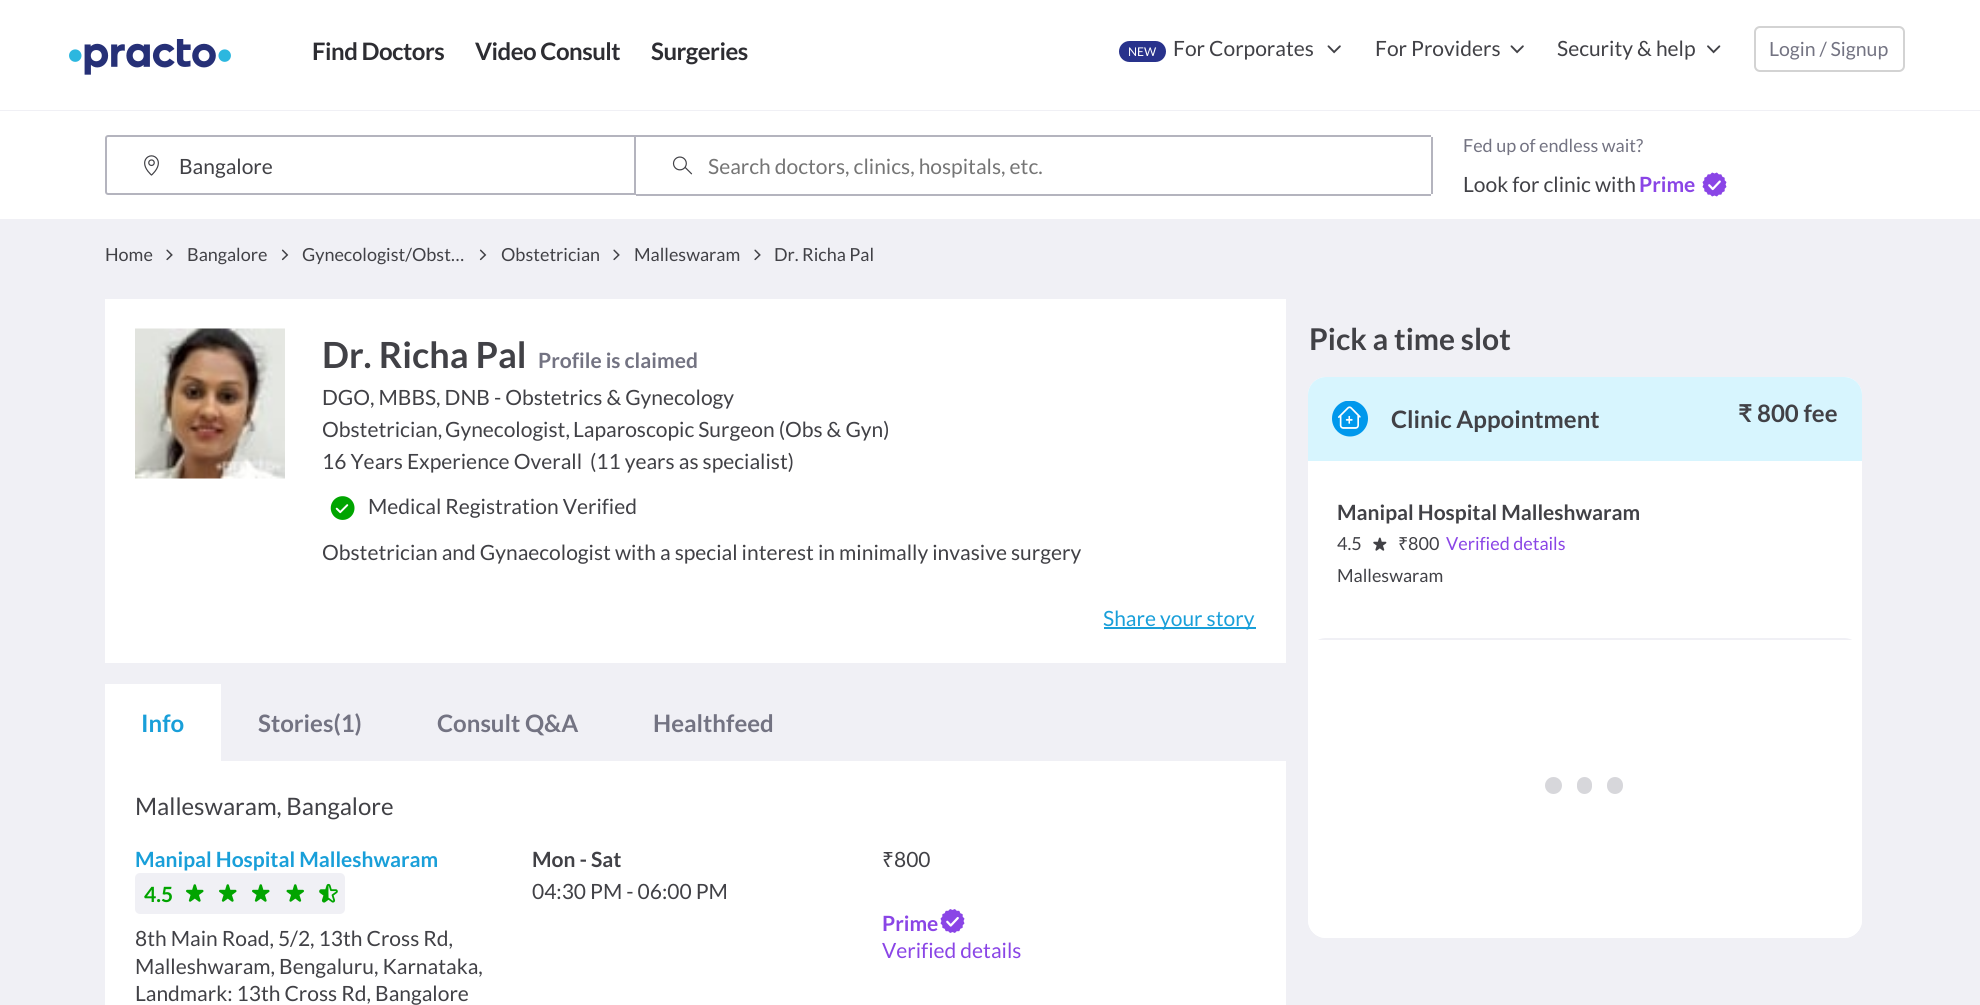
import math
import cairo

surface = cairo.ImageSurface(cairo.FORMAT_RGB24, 1980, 1005)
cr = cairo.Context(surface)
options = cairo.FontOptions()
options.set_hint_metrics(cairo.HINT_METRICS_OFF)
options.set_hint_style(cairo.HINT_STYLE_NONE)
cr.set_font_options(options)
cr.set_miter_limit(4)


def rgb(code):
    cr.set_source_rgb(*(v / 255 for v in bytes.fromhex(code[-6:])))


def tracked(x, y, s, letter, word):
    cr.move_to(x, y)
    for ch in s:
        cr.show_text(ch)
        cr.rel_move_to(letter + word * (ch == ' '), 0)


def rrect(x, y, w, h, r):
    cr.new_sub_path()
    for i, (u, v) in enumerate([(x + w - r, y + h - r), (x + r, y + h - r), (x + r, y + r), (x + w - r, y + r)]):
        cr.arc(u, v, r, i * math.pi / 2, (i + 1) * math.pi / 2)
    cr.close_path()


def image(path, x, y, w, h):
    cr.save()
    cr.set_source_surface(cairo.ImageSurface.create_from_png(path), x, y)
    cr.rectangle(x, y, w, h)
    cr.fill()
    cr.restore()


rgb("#f0f0f5")
cr.paint()
rgb("#ffffff")
cr.rectangle(0, 0, 1980, 110)
cr.fill()
image("img/1.png", 69, 39, 162, 36)
rgb("#28328c")
rrect(1119, 41, 47, 21, 10.5)
cr.fill()
image("img/2.png", 1327, 45, 14, 9)
image("img/2.png", 1510, 45, 14, 9)
image("img/3.png", 1707, 45, 14, 9)
rrect(1755, 27, 149, 44, 5)
rgb("#d3d3d3")
cr.stroke()
rgb("#ffffff")
cr.rectangle(0, 111, 1980, 108)
cr.fill()
cr.new_path()
cr.move_to(108, 136)
cr.line_to(635, 136)
cr.line_to(635, 194)
cr.line_to(108, 194)
cr.curve_to(107, 194, 106, 193, 106, 192)
cr.line_to(106, 138)
cr.curve_to(106, 137, 107, 136, 108, 136)
cr.close_path()
rgb("#b4b4be")
cr.stroke()
image("img/4.png", 144, 155, 15, 21)
image("img/5.png", 672, 156, 21, 19)
for x, y, w, h, color in [
    (636, 135, 795, 2, "#b4b4be"),
    (1431, 137, 2, 57, "#b4b4be"),
    (636, 194, 795, 2, "#b4b4be"),
]:
    rgb(color)
    cr.rectangle(x, y, w, h)
    cr.fill()
image("img/6.png", 1702, 172, 25, 25)
image("img/7.png", 166, 249, 7, 12)
image("img/8.png", 281, 249, 8, 12)
image("img/8.png", 479, 249, 8, 12)
image("img/7.png", 613, 249, 7, 12)
image("img/7.png", 754, 249, 7, 12)
rgb("#ffffff")
cr.rectangle(105, 299, 1181, 364)
cr.fill()
image("img/9.png", 135, 328, 150, 151)
image("img/10.png", 330, 496, 25, 24)
for x, y, w, h, color in [
    (1104, 627, 152, 2, "#199fd9"),
    (105, 684, 116, 77, "#ffffff"),
    (105, 761, 1181, 244, "#ffffff"),
]:
    rgb(color)
    cr.rectangle(x, y, w, h)
    cr.fill()
rgb("#f0f0f5")
rrect(135, 873, 210, 41, 5)
cr.fill()
image("img/11.png", 186, 884, 18, 18)
image("img/11.png", 219, 884, 18, 18)
image("img/11.png", 252, 884, 18, 18)
image("img/12.png", 286, 884, 18, 18)
image("img/13.png", 319, 883, 19, 20)
image("img/14.png", 940, 909, 25, 24)
rgb("#ffffff")
rrect(1308, 377, 554, 561, 18)
cr.fill()
rgb("#d7f5fe")
cr.new_path()
cr.move_to(1326, 377)
cr.line_to(1844, 377)
cr.curve_to(1854, 377, 1862, 385, 1862, 395)
cr.line_to(1862, 461)
cr.line_to(1308, 461)
cr.line_to(1308, 395)
cr.curve_to(1308, 385, 1316, 377, 1326, 377)
cr.close_path()
cr.fill()
image("img/15.png", 1332, 401, 36, 36)
image("img/16.png", 1373, 537, 14, 14)
rgb("#ffffff")
rrect(1308, 638, 554, 300, 18)
cr.fill()
cr.save()
rrect(1308, 638, 554, 300, 18)
cr.clip()
rgb("#f0f0f5")
cr.rectangle(1318, 638, 534, 2)
cr.fill()
cr.restore()
rgb("#d7d7db")
cr.arc(1553.5, 785.5, 8.5, 0, 2 * math.pi)
cr.fill()
rrect(1577, 777, 15, 17, 7.5)
cr.fill()
rrect(1607, 777, 16, 17, 8)
cr.fill()
cr.select_font_face("Lato", cairo.FONT_SLANT_NORMAL, cairo.FONT_WEIGHT_BOLD)
cr.set_font_size(24)
rgb("#2d2d32")
for x, y, s in [
    (312, 60, "Find Doctors"),
    (475, 60, "Video Consult"),
    (651, 60, "Surgeries"),
]:
    tracked(x, y, s, -0.5, 0)
cr.select_font_face("Lato")
cr.set_font_size(12)
rgb("#ffffff")
cr.move_to(1128, 56)
cr.show_text("NEW")
cr.set_font_size(21)
rgb("#414146")
for x, y, s in [
    (1173, 56, "For Corporates"),
    (1375, 56, "For Providers"),
    (1557, 56, "Security & help"),
]:
    cr.move_to(x, y)
    cr.show_text(s)
cr.set_font_size(19.5)
rgb("#737382")
cr.move_to(1769, 56)
cr.show_text("Login / Signup")
cr.set_font_size(21)
rgb("#414146")
cr.move_to(179, 174)
cr.show_text("Bangalore")
rgb("#757575")
cr.move_to(708, 174)
cr.show_text("Search doctors, clinics, hospitals, etc.")
cr.set_font_size(18)
rgb("#737382")
cr.move_to(1463, 152)
cr.show_text("Fed up of endless wait?")
cr.set_font_size(21)
rgb("#414146")
cr.move_to(1463, 192)
cr.show_text("Look for clinic with")
cr.select_font_face("Lato", cairo.FONT_SLANT_NORMAL, cairo.FONT_WEIGHT_BOLD)
rgb("#8a45e6")
cr.move_to(1639, 192)
cr.show_text("Prime")
cr.select_font_face("Lato")
cr.set_font_size(18)
rgb("#414146")
for x, y, s in [
    (105, 261, "Home"),
    (187, 261, "Bangalore"),
    (302, 261, "Gynecologist/Obst…"),
    (501, 261, "Obstetrician"),
    (634, 261, "Malleswaram"),
    (774, 261, "Dr. Richa Pal"),
]:
    cr.move_to(x, y)
    cr.show_text(s)
cr.select_font_face("Lato", cairo.FONT_SLANT_NORMAL, cairo.FONT_WEIGHT_BOLD)
cr.set_font_size(36)
cr.move_to(322, 368)
cr.show_text("Dr. Richa Pal")
cr.set_font_size(21)
rgb("#737382")
cr.move_to(538, 368)
cr.show_text("Profile is claimed")
cr.select_font_face("Lato")
rgb("#414146")
for x, y, s in [
    (322, 405, "DGO, MBBS, DNB - Obstetrics & Gynecology"),
    (322, 437, "Obstetrician,"),
    (445, 437, "Gynecologist,"),
    (573, 437, "Laparoscopic Surgeon (Obs & Gyn)"),
    (322, 469, "16 Years Experience Overall"),
    (590, 469, "(11 years as specialist)"),
    (368, 514, "Medical Registration Verified"),
    (322, 560, "Obstetrician and Gynaecologist with a special interest in minimally invasive surgery"),
]:
    cr.move_to(x, y)
    cr.show_text(s)
rgb("#199fd9")
cr.move_to(1103, 626)
cr.show_text("Share your story")
cr.select_font_face("Lato", cairo.FONT_SLANT_NORMAL, cairo.FONT_WEIGHT_BOLD)
cr.set_font_size(24)
cr.move_to(141, 732)
cr.show_text("Info")
rgb("#737382")
for x, y, s in [
    (258, 732, "Stories(1)"),
    (437, 732, "Consult Q&A"),
    (653, 732, "Healthfeed"),
]:
    cr.move_to(x, y)
    cr.show_text(s)
cr.select_font_face("Lato")
rgb("#414146")
cr.move_to(135, 815)
cr.show_text("Malleswaram, Bangalore")
cr.select_font_face("Lato", cairo.FONT_SLANT_NORMAL, cairo.FONT_WEIGHT_BOLD)
cr.set_font_size(21)
rgb("#199fd9")
cr.move_to(135, 867)
cr.show_text("Manipal Hospital Malleshwaram")
rgb("#01a400")
cr.move_to(144, 902)
cr.show_text("4.5")
cr.select_font_face("Lato")
rgb("#414146")
for x, y, s in [
    (135, 946, "8th Main Road, 5/2, 13th Cross Rd,"),
    (135, 974, "Malleshwaram, Bengaluru, Karnataka,"),
    (135, 1001, "Landmark: 13th Cross Rd, Bangalore"),
]:
    cr.move_to(x, y)
    cr.show_text(s)
cr.select_font_face("Lato", cairo.FONT_SLANT_NORMAL, cairo.FONT_WEIGHT_BOLD)
cr.move_to(532, 867)
cr.show_text("Mon - Sat")
cr.select_font_face("Lato")
cr.move_to(532, 899)
cr.show_text("04:30 PM - 06:00 PM")
cr.select_font_face("Noto Sans")
cr.move_to(882, 867)
cr.show_text("₹")
cr.select_font_face("Lato")
cr.move_to(894, 867)
cr.show_text("800")
cr.select_font_face("Lato", cairo.FONT_SLANT_NORMAL, cairo.FONT_WEIGHT_BOLD)
rgb("#8a45e6")
cr.move_to(882, 931)
cr.show_text("Prime")
cr.select_font_face("Lato")
cr.move_to(882, 958)
cr.show_text("Verified details")
cr.select_font_face("Lato", cairo.FONT_SLANT_NORMAL, cairo.FONT_WEIGHT_BOLD)
cr.set_font_size(30)
rgb("#414146")
cr.move_to(1309, 350)
cr.show_text("Pick a time slot")
cr.set_font_size(24)
cr.move_to(1391, 428)
cr.show_text("Clinic Appointment")
cr.select_font_face("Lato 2", cairo.FONT_SLANT_NORMAL, cairo.FONT_WEIGHT_BOLD)
cr.move_to(1738, 422)
cr.show_text("₹")
cr.select_font_face("Lato", cairo.FONT_SLANT_NORMAL, cairo.FONT_WEIGHT_BOLD)
cr.move_to(1757, 422)
cr.show_text("800 fee")
cr.set_font_size(21)
cr.move_to(1337, 520)
cr.show_text("Manipal Hospital Malleshwaram")
cr.select_font_face("Lato")
cr.set_font_size(18)
cr.move_to(1337, 550)
cr.show_text("4.5")
cr.select_font_face("Noto Sans")
cr.move_to(1398, 550)
cr.show_text("₹")
cr.select_font_face("Lato")
cr.move_to(1408, 550)
cr.show_text("800")
rgb("#8a45e6")
cr.move_to(1446, 550)
cr.show_text("Verified details")
rgb("#414146")
cr.move_to(1337, 582)
cr.show_text("Malleswaram")
surface.write_to_png("page.png")
